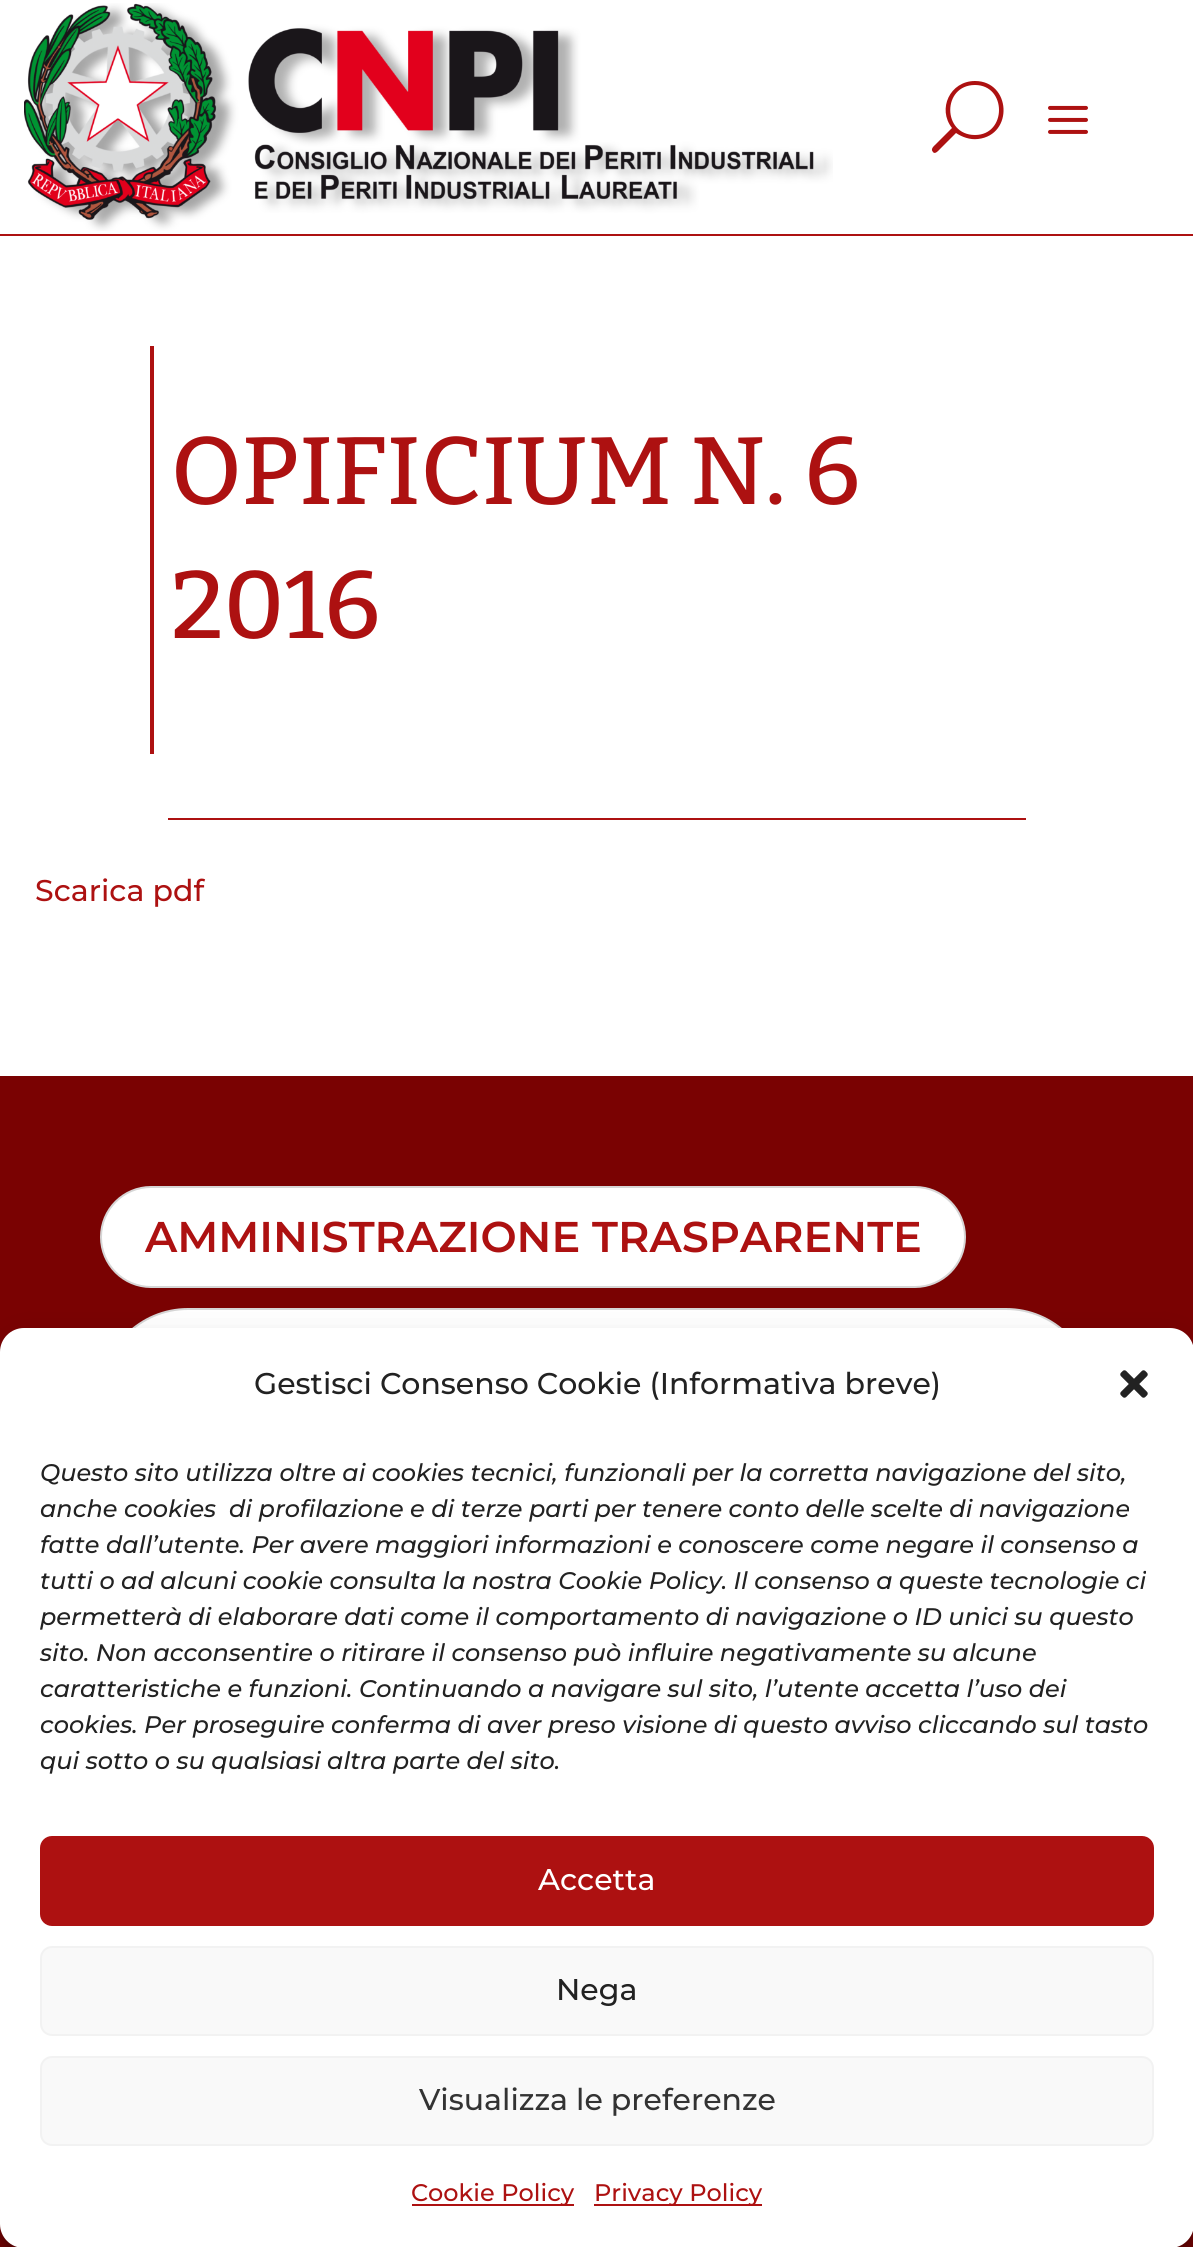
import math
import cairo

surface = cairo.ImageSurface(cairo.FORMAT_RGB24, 1193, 2247)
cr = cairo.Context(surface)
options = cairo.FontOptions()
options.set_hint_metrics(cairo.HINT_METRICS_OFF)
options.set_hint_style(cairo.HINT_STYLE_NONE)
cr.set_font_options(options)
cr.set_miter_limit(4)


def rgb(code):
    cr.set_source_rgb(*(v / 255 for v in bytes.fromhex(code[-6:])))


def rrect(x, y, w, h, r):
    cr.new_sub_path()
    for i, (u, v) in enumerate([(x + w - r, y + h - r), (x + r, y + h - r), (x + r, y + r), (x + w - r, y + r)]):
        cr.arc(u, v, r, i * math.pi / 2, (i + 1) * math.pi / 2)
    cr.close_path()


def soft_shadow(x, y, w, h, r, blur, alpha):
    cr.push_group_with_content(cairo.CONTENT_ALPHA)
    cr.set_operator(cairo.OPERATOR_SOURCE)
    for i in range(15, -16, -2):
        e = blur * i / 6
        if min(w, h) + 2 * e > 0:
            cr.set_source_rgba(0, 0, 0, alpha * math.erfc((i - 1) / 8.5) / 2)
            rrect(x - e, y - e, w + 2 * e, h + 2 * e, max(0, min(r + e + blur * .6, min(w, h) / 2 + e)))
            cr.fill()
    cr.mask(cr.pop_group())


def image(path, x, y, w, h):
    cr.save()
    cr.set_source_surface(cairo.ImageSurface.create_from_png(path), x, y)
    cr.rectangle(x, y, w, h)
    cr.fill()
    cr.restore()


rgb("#ffffff")
cr.paint()
image("img/1.png", 24, 3, 809, 228)
rgb("#ad1111")
cr.new_path()
cr.move_to(975, 81)
cr.curve_to(950, 81, 937, 109, 952, 128)
cr.line_to(936, 144)
cr.curve_to(934, 146, 930, 149, 933, 152)
cr.curve_to(935, 155, 939, 150, 940, 149)
cr.line_to(956, 133)
cr.curve_to(962, 137, 970, 140, 978, 139)
cr.curve_to(1014, 135, 1011, 81, 975, 81)
cr.close_path()
cr.move_to(975, 135)
cr.curve_to(942, 135, 942, 85, 975, 85)
cr.curve_to(1007, 85, 1007, 135, 975, 135)
cr.close_path()
cr.fill()
image("img/2.png", 1048, 105, 40, 29)
for x, y, w, h, color in [
    (0, 234, 1193, 2, "#ad1111"),
    (150, 346, 4, 408, "#ad1111"),
    (168, 818, 858, 2, "#ad1111"),
    (0, 1076, 1193, 1171, "#7a0202"),
]:
    rgb(color)
    cr.rectangle(x, y, w, h)
    cr.fill()
rgb("#ffffff")
rrect(101, 1187, 864, 100, 50)
cr.fill_preserve()
rgb("#d6d6d6")
cr.stroke()
rgb("#ffffff")
rrect(101, 1309, 992, 174, 87)
cr.fill_preserve()
rgb("#d6d6d6")
cr.stroke()
rgb("#000000")
soft_shadow(0, 1340, 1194, 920, 24, 6, 0.23)
soft_shadow(0, 1348, 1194, 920, 24, 20, 0.19)
rgb("#ffffff")
rrect(0, 1328, 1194, 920, 24)
cr.fill()
image("img/3.png", 1120, 1370, 28, 28)
rgb("#ad1111")
rrect(41, 1837, 1112, 88, 11)
cr.fill_preserve()
cr.stroke()
rgb("#f9f9f9")
rrect(41, 1947, 1112, 88, 11)
cr.fill_preserve()
rgb("#f2f2f2")
cr.stroke()
rgb("#f9f9f9")
rrect(41, 2057, 1112, 88, 11)
cr.fill_preserve()
rgb("#f2f2f2")
cr.stroke()
rgb("#ad1111")
cr.rectangle(412, 2204, 162, 2)
cr.fill()
cr.rectangle(594, 2204, 168, 2)
cr.fill()
cr.select_font_face("Bitter Thin")
cr.set_font_size(95.5)
cr.move_to(171, 504)
cr.show_text("OPIFICIUM N. 6")
cr.move_to(171, 638)
cr.show_text("2016")
cr.select_font_face("Montserrat Thin")
cr.set_font_size(30)
cr.move_to(35, 901)
cr.show_text("Scarica pdf")
cr.select_font_face("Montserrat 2 Thin")
cr.set_font_size(43)
cr.move_to(145, 1252)
cr.show_text("AMMINISTRAZIONE TRASPARENTE")
cr.select_font_face("Montserrat Thin")
cr.set_font_size(30)
rgb("#222222")
cr.move_to(254, 1394)
cr.show_text("Gestisci Consenso Cookie (Informativa breve)")
cr.select_font_face("Montserrat Thin", cairo.FONT_SLANT_ITALIC)
cr.set_font_size(24)
for x, y, s in [
    (40, 1481, "Questo sito utilizza oltre ai cookies tecnici, funzionali per la corretta navigazione del sito,"),
    (40, 1517, "anche cookies  di profilazione e di terze parti per tenere conto delle scelte di navigazione"),
    (40, 1553, "fatte dall’utente. Per avere maggiori informazioni e conoscere come negare il consenso a"),
    (40, 1589, "tutti o ad alcuni cookie consulta la nostra Cookie Policy. Il consenso a queste tecnologie ci"),
    (40, 1625, "permetterà di elaborare dati come il comportamento di navigazione o ID unici su questo"),
    (40, 1661, "sito. Non acconsentire o ritirare il consenso può influire negativamente su alcune"),
    (40, 1697, "caratteristiche e funzioni. Continuando a navigare sul sito, l’utente accetta l’uso dei"),
    (40, 1733, "cookies. Per proseguire conferma di aver preso visione di questo avviso cliccando sul tasto"),
    (40, 1769, "qui sotto o su qualsiasi altra parte del sito."),
]:
    cr.move_to(x, y)
    cr.show_text(s)
cr.select_font_face("Montserrat Thin")
cr.set_font_size(30)
rgb("#ffffff")
cr.move_to(538, 1890)
cr.show_text("Accetta")
rgb("#222222")
cr.move_to(556, 2000)
cr.show_text("Nega")
rgb("#333333")
cr.move_to(419, 2110)
cr.show_text("Visualizza le preferenze")
cr.set_font_size(24)
rgb("#ad1111")
cr.move_to(411, 2201)
cr.show_text("Cookie Policy")
cr.move_to(594, 2201)
cr.show_text("Privacy Policy")
surface.write_to_png("page.png")
